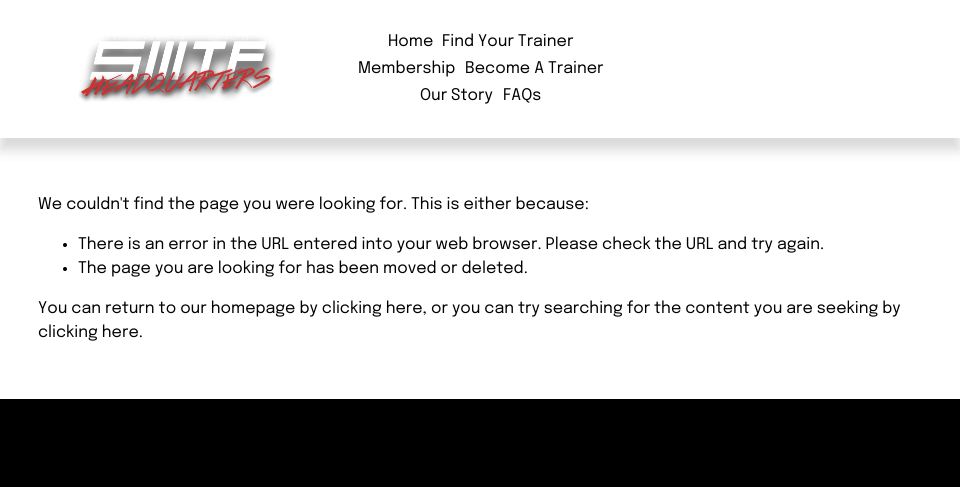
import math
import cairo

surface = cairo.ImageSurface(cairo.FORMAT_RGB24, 960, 487)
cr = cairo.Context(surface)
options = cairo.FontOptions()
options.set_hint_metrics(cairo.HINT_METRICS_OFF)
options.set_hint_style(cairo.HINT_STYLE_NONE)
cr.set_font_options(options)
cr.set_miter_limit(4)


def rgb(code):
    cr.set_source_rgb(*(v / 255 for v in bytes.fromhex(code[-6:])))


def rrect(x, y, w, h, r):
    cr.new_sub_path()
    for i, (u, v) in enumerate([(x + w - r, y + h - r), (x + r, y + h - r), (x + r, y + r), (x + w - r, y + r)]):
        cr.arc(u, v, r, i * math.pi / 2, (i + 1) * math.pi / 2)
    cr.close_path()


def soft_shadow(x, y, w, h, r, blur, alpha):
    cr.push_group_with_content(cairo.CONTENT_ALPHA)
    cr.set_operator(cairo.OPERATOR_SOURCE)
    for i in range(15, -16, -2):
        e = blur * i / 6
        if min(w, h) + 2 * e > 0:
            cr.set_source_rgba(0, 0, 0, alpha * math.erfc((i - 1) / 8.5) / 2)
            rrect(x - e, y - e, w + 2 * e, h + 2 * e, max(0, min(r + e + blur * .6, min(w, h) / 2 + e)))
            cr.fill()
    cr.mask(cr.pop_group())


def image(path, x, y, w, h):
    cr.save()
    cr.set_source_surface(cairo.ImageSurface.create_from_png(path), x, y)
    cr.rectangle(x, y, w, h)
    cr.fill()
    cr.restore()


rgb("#ffffff")
cr.paint()
cr.save()
cr.rectangle(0, 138, 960, 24)
cr.clip()
rgb("#d9d9d9")
soft_shadow(0, 12, 960, 138, 0, 6, 1)
cr.restore()
image("img/1.png", 78, 35, 198, 67)
rgb("#000000")
cr.arc(65, 245, 2, 0, 2 * math.pi)
cr.fill()
cr.arc(65, 269, 2, 0, 2 * math.pi)
cr.fill()
cr.rectangle(0, 399, 960, 88)
cr.fill()
cr.select_font_face("Epilogue")
cr.set_font_size(16)
for x, y, s in [
    (388, 46, "Home"),
    (442, 46, "Find Your Trainer"),
    (358, 73, "Membership"),
    (465, 73, "Become A Trainer"),
    (420, 100, "Our Story"),
    (503, 100, "FAQs"),
    (38, 209, "We couldn't find the page you were looking for. This is either because:"),
    (78, 249, "There is an error in the URL entered into your web browser. Please check the URL and try again."),
    (78, 273, "The page you are looking for has been moved or deleted."),
    (38, 313, "You can return to our homepage by clicking here, or you can try searching for the content you are seeking by"),
    (38, 337, "clicking here."),
]:
    cr.move_to(x, y)
    cr.show_text(s)
surface.write_to_png("page.png")
